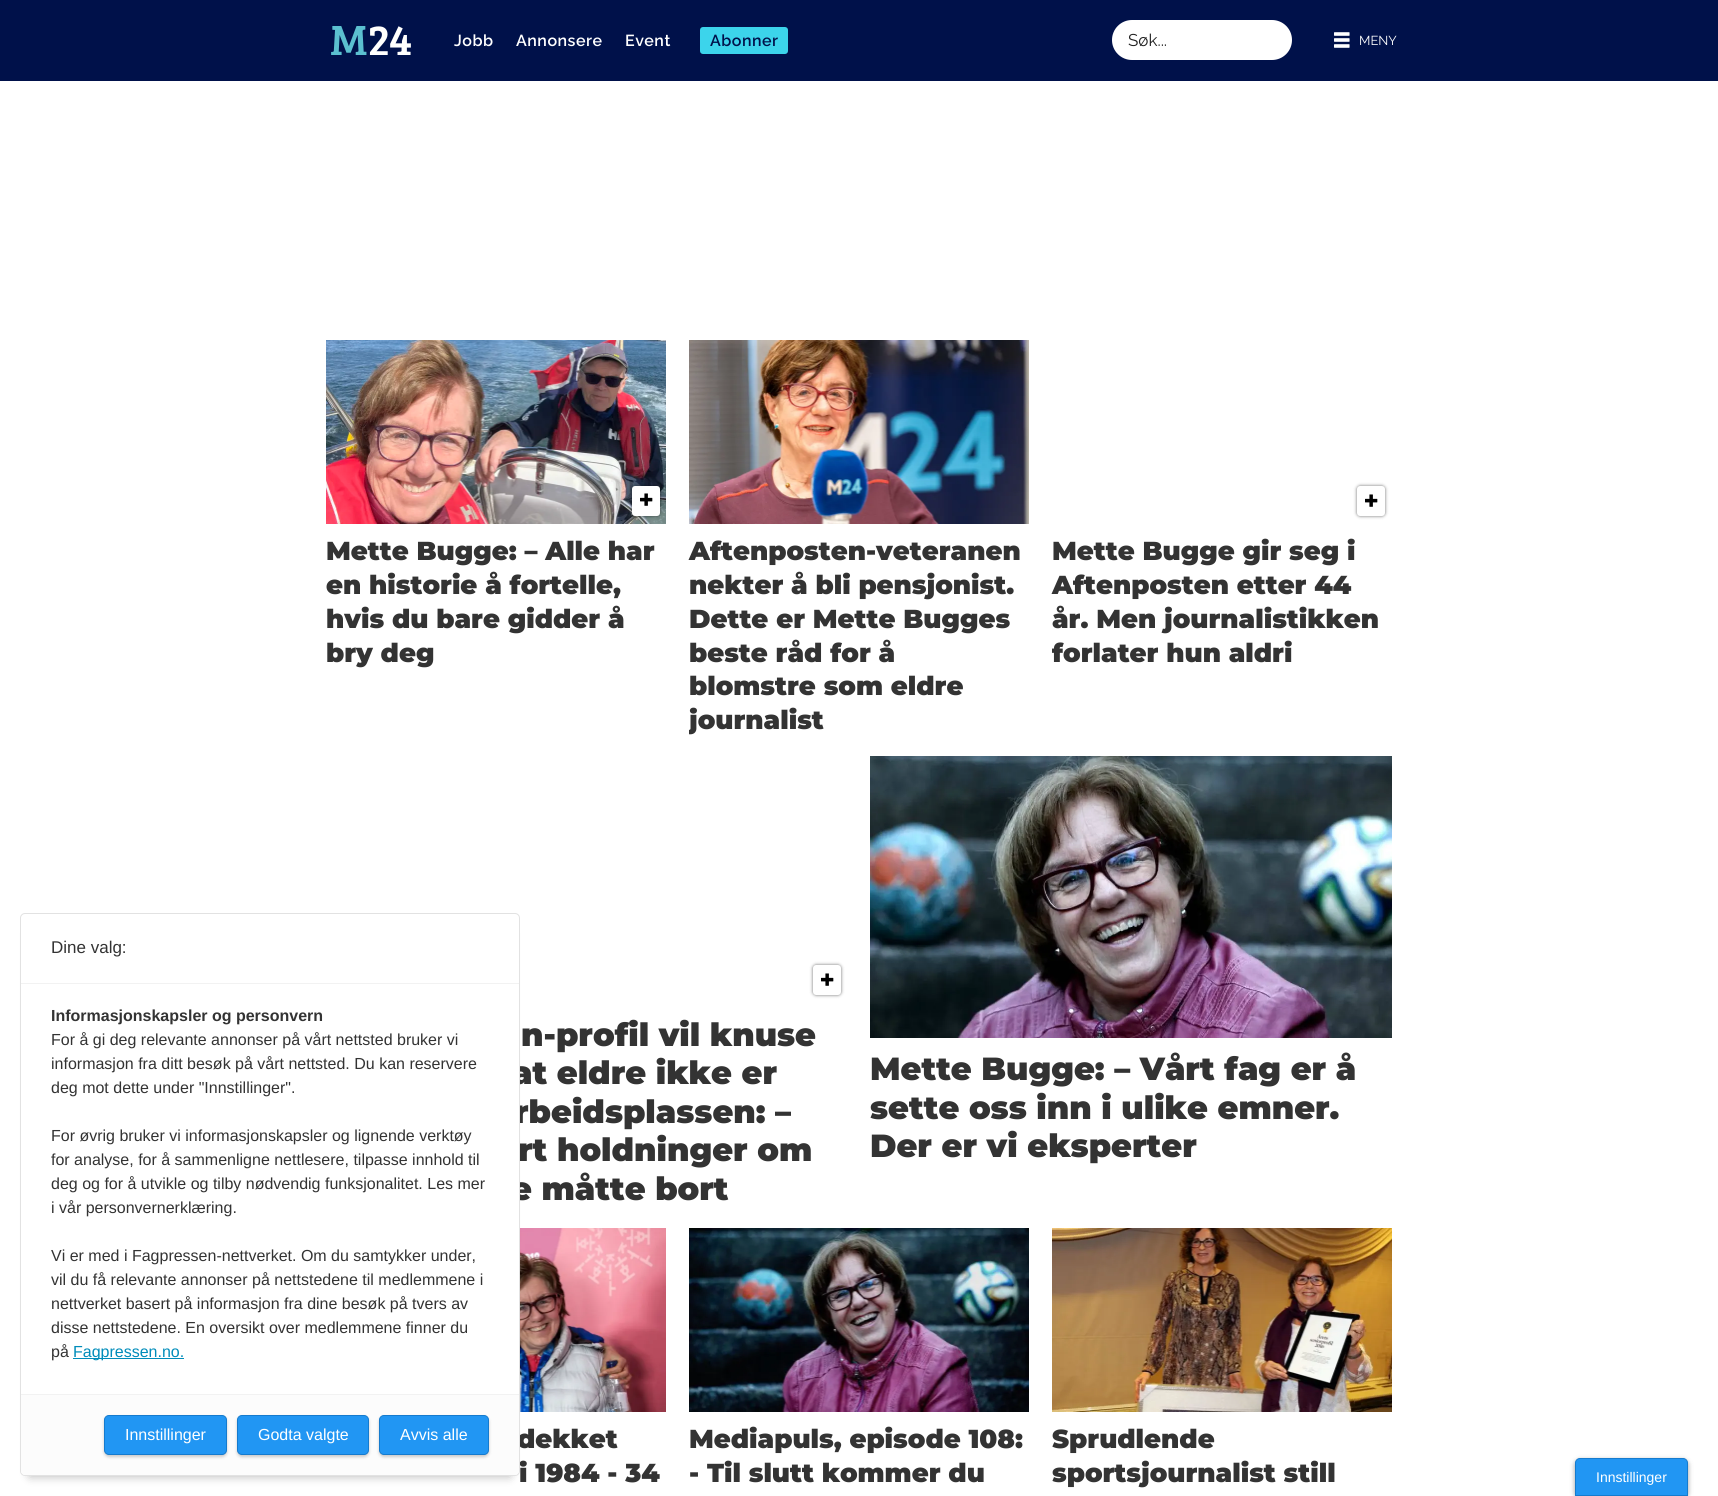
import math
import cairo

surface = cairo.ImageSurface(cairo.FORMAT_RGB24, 1718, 1496)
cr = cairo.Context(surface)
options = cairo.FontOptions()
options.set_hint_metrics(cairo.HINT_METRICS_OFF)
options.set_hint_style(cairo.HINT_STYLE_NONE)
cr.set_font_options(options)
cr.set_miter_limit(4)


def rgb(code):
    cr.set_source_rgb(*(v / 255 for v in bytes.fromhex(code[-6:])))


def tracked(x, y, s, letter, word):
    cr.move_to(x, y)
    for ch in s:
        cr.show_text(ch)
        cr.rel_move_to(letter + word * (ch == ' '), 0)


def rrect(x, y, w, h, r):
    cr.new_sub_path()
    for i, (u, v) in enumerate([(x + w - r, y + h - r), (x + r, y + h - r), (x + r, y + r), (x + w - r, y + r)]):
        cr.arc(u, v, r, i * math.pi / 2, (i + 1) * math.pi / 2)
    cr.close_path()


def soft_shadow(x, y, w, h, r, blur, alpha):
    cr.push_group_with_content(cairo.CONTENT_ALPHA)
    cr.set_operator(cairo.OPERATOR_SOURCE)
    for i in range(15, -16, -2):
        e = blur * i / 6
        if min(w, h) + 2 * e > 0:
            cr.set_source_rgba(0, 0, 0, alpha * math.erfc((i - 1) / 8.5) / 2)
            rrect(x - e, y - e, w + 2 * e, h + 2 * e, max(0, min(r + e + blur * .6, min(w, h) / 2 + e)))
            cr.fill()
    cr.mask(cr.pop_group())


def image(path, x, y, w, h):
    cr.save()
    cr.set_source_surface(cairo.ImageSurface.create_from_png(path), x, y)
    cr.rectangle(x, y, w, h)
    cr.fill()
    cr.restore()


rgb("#ffffff")
cr.paint()
rgb("#00114a")
cr.rectangle(0, 0, 1718, 81)
cr.fill()
image("img/1.png", 331, 26, 80, 29)
rgb("#3cd4eb")
rrect(700, 27, 88, 27, 3)
cr.fill()
rgb("#ffffff")
rrect(1112, 20, 180, 40, 20)
cr.fill()
image("img/2.png", 1334, 32, 16, 16)
image("img/7.png", 520, 1228, 146, 184)
rgb("#000000")
soft_shadow(30, 933, 480, 543, 0, 5, 0.3)
image("img/3.png", 326, 340, 340, 184)
soft_shadow(633, 487, 26, 28, 2, 2, 1)
rgb("#ffffff")
rrect(632, 486, 28, 30, 3)
cr.fill()
image("img/4.png", 640, 493, 13, 13)
image("img/5.png", 689, 340, 340, 184)
rgb("#000000")
soft_shadow(1358, 487, 26, 28, 2, 2, 1)
rgb("#ffffff")
rrect(1357, 486, 28, 30, 3)
cr.fill()
image("img/4.png", 1365, 494, 13, 13)
rgb("#000000")
soft_shadow(814, 966, 26, 28, 2, 2, 1)
rgb("#ffffff")
rrect(813, 965, 28, 30, 3)
cr.fill()
image("img/4.png", 821, 973, 13, 13)
image("img/6.png", 870, 756, 522, 282)
image("img/8.png", 689, 1228, 340, 184)
image("img/9.png", 1052, 1228, 340, 184)
rgb("#000000")
soft_shadow(1575, 1460, 113, 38, 5, 2.5, 0.4)
rgb("#2196f3")
cr.new_path()
cr.move_to(1580, 1458.5)
cr.line_to(1683, 1458.5)
cr.curve_to(1685.5, 1458.5, 1687.5, 1460.5, 1687.5, 1463)
cr.line_to(1687.5, 1495.5)
cr.line_to(1575.5, 1495.5)
cr.line_to(1575.5, 1463)
cr.curve_to(1575.5, 1460.5, 1577.5, 1458.5, 1580, 1458.5)
cr.close_path()
cr.fill_preserve()
rgb("#157bce")
cr.set_line_width(1)
cr.stroke()
cr.select_font_face("Raleway SemiBold")
cr.set_font_size(16)
rgb("#ffffff")
for x, y, s in [
    (454, 46, "Jobb"),
    (516, 46, "Annonsere"),
    (625, 46, "Event"),
]:
    tracked(x, y, s, 0.5, 0)
rgb("#00114a")
tracked(710, 46, "Abonner", 0.5, 0)
cr.select_font_face("Raleway")
cr.set_font_size(17)
rgb("#222222")
cr.move_to(1128, 46)
cr.show_text("Søk...")
cr.set_font_size(13)
rgb("#ffffff")
cr.move_to(1359, 45)
cr.show_text("MENY")
cr.select_font_face("Montserrat Black")
cr.set_font_size(26)
rgb("#333333")
for x, y, s in [
    (326, 560, "Mette Bugge: – Alle har"),
    (326, 594, "en historie å fortelle,"),
    (326, 628, "hvis du bare gidder å"),
    (326, 662, "bry deg"),
    (689, 560, "Aftenposten-veteranen"),
    (689, 594, "nekter å bli pensjonist."),
    (689, 628, "Dette er Mette Bugges"),
    (689, 662, "beste råd for å"),
    (689, 695, "blomstre som eldre"),
]:
    cr.move_to(x, y)
    cr.show_text(s)
cr.save()
cr.rectangle(689, 340, 340, 405)
cr.clip()
cr.move_to(689, 729)
cr.show_text("journalist")
cr.restore()
for x, y, s in [
    (1052, 560, "Mette Bugge gir seg i"),
    (1052, 594, "Aftenposten etter 44"),
    (1052, 628, "år. Men journalistikken"),
]:
    cr.move_to(x, y)
    cr.show_text(s)
cr.save()
cr.rectangle(1052, 340, 340, 338)
cr.clip()
cr.move_to(1052, 662)
cr.show_text("forlater hun aldri")
cr.restore()
cr.set_font_size(32)
for x, y, s in [
    (521, 1046, "n-profil vil knuse"),
    (512, 1084, "at eldre ikke er"),
    (514, 1123, "rbeidsplassen: –"),
    (518, 1161, "rt holdninger om"),
    (511, 1200, "e måtte bort"),
    (870, 1080, "Mette Bugge: – Vårt fag er å"),
    (870, 1119, "sette oss inn i ulike emner."),
    (870, 1157, "Der er vi eksperter"),
]:
    cr.move_to(x, y)
    cr.show_text(s)
cr.set_font_size(26)
cr.move_to(517, 1448)
cr.show_text("dekket")
cr.move_to(519, 1482)
cr.show_text("i 1984 - 34")
rgb("#ffffff")
rrect(20.5, 913.5, 499, 562, 4.5)
cr.fill_preserve()
rgb("#e2e2e2")
cr.stroke()
rgb("#fcfcfc")
cr.new_path()
cr.move_to(21, 1394)
cr.line_to(519, 1394)
cr.line_to(519, 1471)
cr.curve_to(519, 1473, 517, 1475, 515, 1475)
cr.line_to(25, 1475)
cr.curve_to(23, 1475, 21, 1473, 21, 1471)
cr.close_path()
cr.fill()
rgb("#000000")
soft_shadow(104, 1417, 123, 40, 5, 1.5, 0.2)
rgb("#2196f3")
rrect(104.5, 1415.5, 122, 39, 4.5)
cr.fill_preserve()
rgb("#157bce")
cr.stroke()
cr.select_font_face("Liberation Sans")
cr.set_font_size(16)
rgb("#ffffff")
cr.move_to(125, 1440)
cr.show_text("Innstillinger")
rgb("#000000")
soft_shadow(237, 1417, 132, 40, 5, 1.5, 0.2)
rgb("#2196f3")
rrect(237.5, 1415.5, 131, 39, 4.5)
cr.fill_preserve()
rgb("#157bce")
cr.stroke()
rgb("#ffffff")
cr.move_to(258, 1440)
cr.show_text("Godta valgte")
rgb("#000000")
soft_shadow(379, 1417, 110, 40, 5, 1.5, 0.2)
rgb("#2196f3")
rrect(379.5, 1415.5, 109, 39, 4.5)
cr.fill_preserve()
rgb("#157bce")
cr.stroke()
rgb("#ffffff")
cr.move_to(400, 1440)
cr.show_text("Avvis alle")
rgb("#f2f2f2")
cr.rectangle(21, 1394, 498, 1)
cr.fill()
rgb("#008cba")
cr.rectangle(73, 1358, 111, 1)
cr.fill()
cr.move_to(73, 1357)
cr.show_text("Fagpressen.no.")
rgb("#333333")
for x, y, s in [
    (51, 1357, "på"),
    (51, 1333, "disse nettstedene. En oversikt over medlemmene finner du"),
    (51, 1309, "nettverket basert på informasjon fra dine besøk på tvers av"),
    (51, 1285, "vil du få relevante annonser på nettstedene til medlemmene i"),
    (51, 1261, "Vi er med i Fagpressen-nettverket. Om du samtykker under,"),
    (51, 1213, "i vår personvernerklæring."),
    (51, 1189, "deg og for å utvikle og tilby nødvendig funksjonalitet. Les mer"),
    (51, 1165, "for analyse, for å sammenligne nettlesere, tilpasse innhold til"),
    (51, 1141, "For øvrig bruker vi informasjonskapsler og lignende verktøy"),
    (51, 1093, "deg mot dette under \"Innstillinger\"."),
    (51, 1069, "informasjon fra ditt besøk på vårt nettsted. Du kan reservere"),
    (51, 1045, "For å gi deg relevante annonser på vårt nettsted bruker vi"),
]:
    cr.move_to(x, y)
    cr.show_text(s)
cr.select_font_face("Liberation Sans", cairo.FONT_SLANT_NORMAL, cairo.FONT_WEIGHT_BOLD)
cr.move_to(51, 1021)
cr.show_text("Informasjonskapsler og personvern")
cr.select_font_face("Liberation Sans")
cr.set_font_size(17)
cr.move_to(51, 953)
cr.show_text("Dine valg:")
rgb("#f2f2f2")
cr.rectangle(21, 983, 498, 1)
cr.fill()
cr.select_font_face("Montserrat Black")
cr.set_font_size(26)
rgb("#333333")
for x, y, s in [
    (689, 1448, "Mediapuls, episode 108:"),
    (689, 1482, "- Til slutt kommer du"),
    (1052, 1448, "Sprudlende"),
    (1052, 1482, "sportsjournalist still"),
]:
    cr.move_to(x, y)
    cr.show_text(s)
cr.select_font_face("Liberation Sans")
cr.set_font_size(14)
rgb("#ffffff")
cr.move_to(1596, 1482)
cr.show_text("Innstillinger")
surface.write_to_png("page.png")
